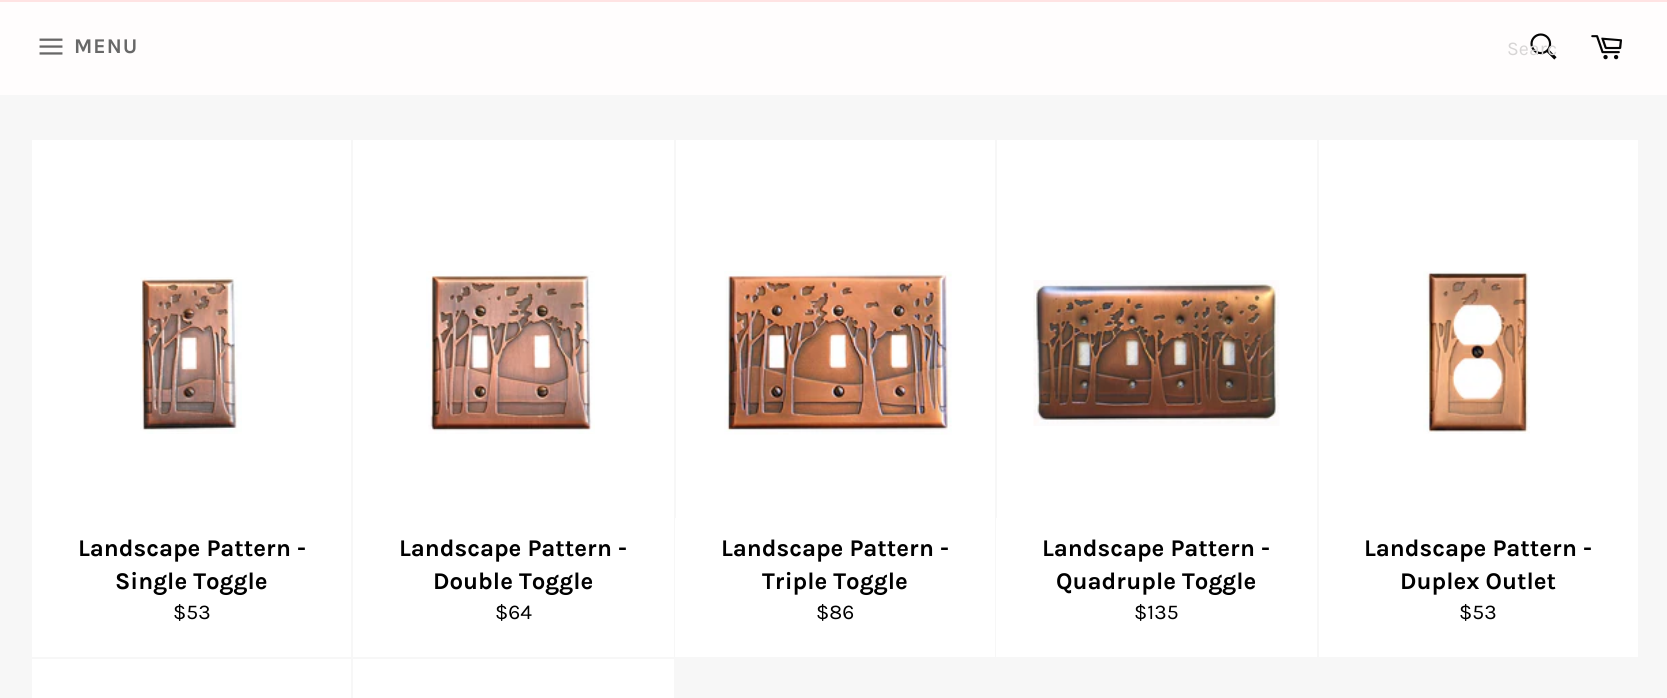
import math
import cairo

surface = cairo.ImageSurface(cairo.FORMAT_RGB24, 1667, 698)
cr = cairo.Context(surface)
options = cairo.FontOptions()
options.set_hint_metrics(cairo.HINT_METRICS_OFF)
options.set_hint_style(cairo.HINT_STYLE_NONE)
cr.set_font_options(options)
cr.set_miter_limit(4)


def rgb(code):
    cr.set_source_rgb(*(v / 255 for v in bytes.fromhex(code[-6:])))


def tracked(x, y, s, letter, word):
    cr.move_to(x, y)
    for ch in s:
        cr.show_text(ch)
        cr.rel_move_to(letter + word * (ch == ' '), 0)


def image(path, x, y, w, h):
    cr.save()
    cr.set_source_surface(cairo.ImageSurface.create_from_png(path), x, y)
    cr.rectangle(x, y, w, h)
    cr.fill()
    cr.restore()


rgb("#f7f7f7")
cr.paint()
rgb("#fffdfd")
cr.rectangle(0, 2, 1667, 93)
cr.fill()
rgb("#ffe3e3")
cr.rectangle(0, 0, 1667, 2)
cr.fill()
image("img/1.png", 39, 38, 24, 17)
image("img/2.png", 1530, 33, 27, 27)
image("img/3.png", 1591, 35, 31, 25)
rgb("#ffffff")
cr.rectangle(32, 140, 319, 517)
cr.fill()
image("img/4.png", 140, 277, 102, 157)
cr.rectangle(353, 140, 321, 517)
cr.fill()
image("img/5.png", 426, 271, 169, 163)
cr.rectangle(676, 140, 319, 378)
cr.fill()
image("img/6.png", 724, 271, 228, 164)
cr.rectangle(675, 518, 320, 139)
cr.fill()
cr.rectangle(997, 140, 320, 378)
cr.fill()
image("img/7.png", 1033, 280, 247, 146)
cr.rectangle(996, 518, 321, 139)
cr.fill()
cr.rectangle(1319, 140, 319, 517)
cr.fill()
image("img/8.png", 1423, 271, 107, 163)
cr.rectangle(32, 659, 319, 39)
cr.fill()
cr.rectangle(353, 659, 321, 39)
cr.fill()
cr.select_font_face("Karla", cairo.FONT_SLANT_NORMAL, cairo.FONT_WEIGHT_BOLD)
cr.set_font_size(21)
rgb("#686868")
tracked(74, 53, "MENU", 1, 0)
cr.save()
cr.rectangle(1508, 38, 48, 22)
cr.clip()
cr.select_font_face("Karla")
cr.set_font_size(19.5)
rgb("#d7d5d5")
cr.move_to(1507, 55)
cr.show_text("Searc")
cr.restore()
cr.set_font_size(24)
rgb("#000000")
cr.move_to(78, 556)
cr.show_text("Landscape Pattern -")
cr.move_to(115, 589)
cr.show_text("Single Toggle")
cr.select_font_face("Karla")
cr.set_font_size(21)
cr.move_to(173, 619)
cr.show_text("$53")
cr.select_font_face("Karla", cairo.FONT_SLANT_NORMAL, cairo.FONT_WEIGHT_BOLD)
cr.set_font_size(24)
cr.move_to(399, 556)
cr.show_text("Landscape Pattern -")
cr.move_to(433, 589)
cr.show_text("Double Toggle")
cr.select_font_face("Karla")
cr.set_font_size(21)
cr.move_to(495, 619)
cr.show_text("$64")
cr.select_font_face("Karla", cairo.FONT_SLANT_NORMAL, cairo.FONT_WEIGHT_BOLD)
cr.set_font_size(24)
cr.move_to(721, 556)
cr.show_text("Landscape Pattern -")
cr.move_to(762, 589)
cr.show_text("Triple Toggle")
cr.select_font_face("Karla")
cr.set_font_size(21)
cr.move_to(816, 619)
cr.show_text("$86")
cr.select_font_face("Karla", cairo.FONT_SLANT_NORMAL, cairo.FONT_WEIGHT_BOLD)
cr.set_font_size(24)
cr.move_to(1042, 556)
cr.show_text("Landscape Pattern -")
cr.move_to(1056, 589)
cr.show_text("Quadruple Toggle")
cr.select_font_face("Karla")
cr.set_font_size(21)
cr.move_to(1134, 619)
cr.show_text("$135")
cr.select_font_face("Karla", cairo.FONT_SLANT_NORMAL, cairo.FONT_WEIGHT_BOLD)
cr.set_font_size(24)
cr.move_to(1364, 556)
cr.show_text("Landscape Pattern -")
cr.move_to(1400, 589)
cr.show_text("Duplex Outlet")
cr.select_font_face("Karla")
cr.set_font_size(21)
cr.move_to(1459, 619)
cr.show_text("$53")
surface.write_to_png("page.png")
